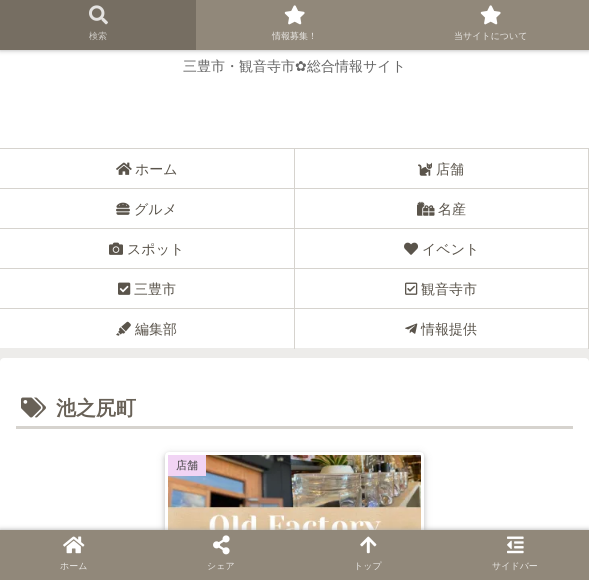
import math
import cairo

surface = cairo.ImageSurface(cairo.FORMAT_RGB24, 589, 580)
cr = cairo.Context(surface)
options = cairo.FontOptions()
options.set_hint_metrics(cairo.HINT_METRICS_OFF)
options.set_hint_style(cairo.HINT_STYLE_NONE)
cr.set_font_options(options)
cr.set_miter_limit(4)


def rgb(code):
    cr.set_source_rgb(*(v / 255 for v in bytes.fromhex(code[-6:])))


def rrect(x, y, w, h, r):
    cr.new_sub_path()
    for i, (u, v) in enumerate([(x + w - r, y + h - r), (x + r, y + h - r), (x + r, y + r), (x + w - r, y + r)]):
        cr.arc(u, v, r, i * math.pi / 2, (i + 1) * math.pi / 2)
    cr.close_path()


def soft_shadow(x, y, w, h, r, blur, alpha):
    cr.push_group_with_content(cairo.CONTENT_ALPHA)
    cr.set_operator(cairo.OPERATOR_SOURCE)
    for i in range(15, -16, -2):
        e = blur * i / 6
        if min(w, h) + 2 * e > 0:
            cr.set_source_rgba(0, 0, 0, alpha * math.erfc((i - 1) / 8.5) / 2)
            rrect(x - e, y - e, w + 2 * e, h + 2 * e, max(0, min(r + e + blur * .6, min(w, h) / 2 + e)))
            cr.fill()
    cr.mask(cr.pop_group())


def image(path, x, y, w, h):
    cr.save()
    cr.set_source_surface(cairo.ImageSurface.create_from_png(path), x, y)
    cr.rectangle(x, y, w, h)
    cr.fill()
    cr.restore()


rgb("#edecea")
cr.paint()
rgb("#ffffff")
cr.rectangle(0, 50, 589, 298)
cr.fill()
rgb("#a9a9a9")
soft_shadow(0, 0, 589, 50, 0, 2.5, 1)
rgb("#91887a")
cr.rectangle(196, 0, 393, 50)
cr.fill()
rgb("#766e62")
cr.rectangle(0, 0, 196, 50)
cr.fill()
image("img/1.png", 89, 5, 19, 20)
image("img/2.png", 284, 5, 21, 20)
image("img/2.png", 480, 5, 21, 20)
rgb("#d6d3ce")
cr.rectangle(0, 148, 589, 1)
cr.fill()
cr.rectangle(294, 148, 1, 41)
cr.fill()
image("img/3.png", 116, 162, 16, 13)
cr.rectangle(588, 148, 1, 41)
cr.fill()
image("img/4.png", 418, 162, 14, 14)
cr.rectangle(0, 188, 589, 1)
cr.fill()
cr.rectangle(294, 188, 1, 41)
cr.fill()
image("img/5.png", 116, 202, 14, 13)
cr.rectangle(588, 188, 1, 41)
cr.fill()
image("img/6.png", 417, 201, 18, 15)
cr.rectangle(0, 228, 589, 1)
cr.fill()
cr.rectangle(294, 228, 1, 41)
cr.fill()
image("img/7.png", 109, 242, 14, 13)
cr.rectangle(588, 228, 1, 41)
cr.fill()
image("img/8.png", 404, 242, 14, 13)
cr.rectangle(0, 268, 589, 1)
cr.fill()
cr.rectangle(294, 268, 1, 41)
cr.fill()
image("img/9.png", 118, 282, 13, 13)
cr.rectangle(588, 268, 1, 41)
cr.fill()
image("img/10.png", 405, 282, 13, 13)
cr.rectangle(0, 308, 589, 1)
cr.fill()
cr.rectangle(294, 308, 1, 41)
cr.fill()
image("img/11.png", 116, 321, 15, 15)
cr.rectangle(588, 308, 1, 41)
cr.fill()
image("img/12.png", 405, 323, 13, 11)
rgb("#ffffff")
rrect(0, 358, 589, 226, 4)
cr.fill()
rgb("#d6d3ce")
cr.rectangle(16, 426, 557, 3)
cr.fill()
image("img/13.png", 21, 397, 25, 21)
rgb("#000000")
soft_shadow(165, 454, 259, 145, 4, 5, 0.12)
soft_shadow(165, 454, 259, 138, 4, 2.5, 0.16)
rrect(166.5, 453.5, 256, 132, 2.5)
rgb("#ffffff")
cr.set_line_width(3)
cr.stroke()
image("img/14.png", 168, 455, 253, 75)
rgb("#f1d4f4")
cr.rectangle(168, 455, 38, 21)
cr.fill()
rgb("#a9a9a9")
soft_shadow(0, 530, 589, 50, 0, 2.5, 1)
rgb("#91887a")
cr.rectangle(0, 530, 589, 50)
cr.fill()
image("img/15.png", 63, 536, 22, 18)
image("img/16.png", 213, 535, 17, 20)
image("img/17.png", 360, 536, 17, 18)
image("img/18.png", 507, 536, 17, 18)
cr.select_font_face("WenQuanYi Zen Hei Medium")
cr.set_font_size(9)
rgb("#cecbc6")
cr.move_to(89, 39)
cr.show_text("検索")
rgb("#e9e7e4")
cr.move_to(272, 39)
cr.show_text("情報募集！")
cr.move_to(454, 39)
cr.show_text("当サイトについて")
cr.set_font_size(14)
rgb("#666666")
cr.move_to(183, 71)
cr.show_text("三豊市・観音寺市")
cr.select_font_face("DejaVu Sans")
cr.move_to(295, 71)
cr.show_text("✿")
cr.select_font_face("WenQuanYi Zen Hei Medium")
cr.move_to(307, 71)
cr.show_text("総合情報サイト")
rgb("#5a544b")
for x, y, s in [
    (135, 174, "ホーム"),
    (436, 174, "店舗"),
    (134, 214, "グルメ"),
    (438, 214, "名産"),
    (127, 254, "スポット"),
    (422, 254, "イベント"),
    (134, 294, "三豊市"),
    (421, 294, "観音寺市"),
    (135, 334, "編集部"),
    (421, 334, "情報提供"),
]:
    cr.move_to(x, y)
    cr.show_text(s)
cr.select_font_face("WenQuanYi Zen Hei", cairo.FONT_SLANT_NORMAL, cairo.FONT_WEIGHT_BOLD)
cr.set_font_size(20)
rgb("#686157")
cr.move_to(56, 415)
cr.show_text("池之尻町")
cr.select_font_face("WenQuanYi Zen Hei Medium")
cr.set_font_size(11)
rgb("#3f3f3f")
cr.move_to(176, 469)
cr.show_text("店舗")
cr.set_font_size(9)
rgb("#e9e7e4")
for x, y, s in [
    (60, 569, "ホーム"),
    (207, 569, "シェア"),
    (354, 569, "トップ"),
    (492, 569, "サイドバー"),
]:
    cr.move_to(x, y)
    cr.show_text(s)
surface.write_to_png("page.png")
